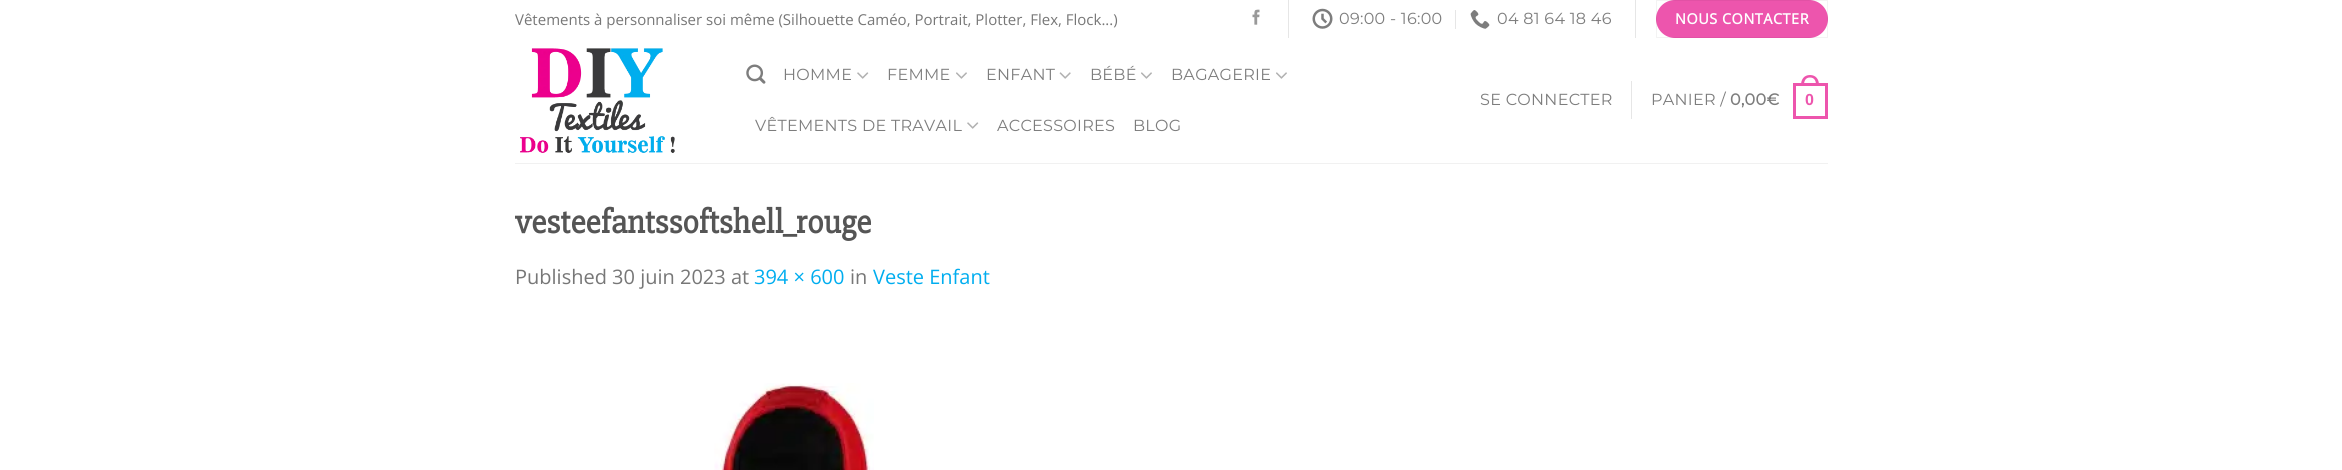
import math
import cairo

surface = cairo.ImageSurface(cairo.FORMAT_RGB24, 2342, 470)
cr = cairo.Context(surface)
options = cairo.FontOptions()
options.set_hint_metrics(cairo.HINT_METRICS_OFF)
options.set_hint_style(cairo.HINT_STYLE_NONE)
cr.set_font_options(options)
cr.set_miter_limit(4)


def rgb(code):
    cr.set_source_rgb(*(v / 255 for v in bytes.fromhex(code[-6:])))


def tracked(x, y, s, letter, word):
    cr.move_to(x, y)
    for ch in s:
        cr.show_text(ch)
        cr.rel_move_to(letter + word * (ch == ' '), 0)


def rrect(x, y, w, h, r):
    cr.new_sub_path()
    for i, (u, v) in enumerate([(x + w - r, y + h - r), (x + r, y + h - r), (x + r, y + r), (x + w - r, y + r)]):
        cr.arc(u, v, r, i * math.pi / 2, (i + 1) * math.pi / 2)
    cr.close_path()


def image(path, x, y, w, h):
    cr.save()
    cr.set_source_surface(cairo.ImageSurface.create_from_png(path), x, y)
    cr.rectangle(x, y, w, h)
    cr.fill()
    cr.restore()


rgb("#ffffff")
cr.paint()
image("img/1.png", 1252, 9, 8, 16)
rgb("#e6e6e6")
cr.rectangle(1288, 0, 1, 38)
cr.fill()
image("img/2.png", 1312, 8, 21, 21)
cr.rectangle(1455, 10, 1, 19)
cr.fill()
image("img/3.png", 1470, 10, 20, 19)
cr.rectangle(1635, 0, 1, 38)
cr.fill()
rgb("#ed55ad")
rrect(1656, 0, 172, 38, 19)
cr.fill()
cr.rectangle(1656.5, 0.5, 171, 37)
cr.set_source_rgba(0, 0, 0, 0.05)
cr.set_line_width(1)
cr.stroke()
image("img/4.png", 520, 48, 155, 105)
image("img/5.png", 746, 64, 20, 20)
image("img/6.png", 857, 72, 12, 7)
image("img/7.png", 956, 72, 11, 7)
image("img/8.png", 1059, 72, 12, 7)
image("img/7.png", 1141, 72, 11, 7)
image("img/7.png", 1276, 72, 11, 7)
image("img/6.png", 967, 122, 12, 7)
rgb("#e6e6e6")
cr.rectangle(1631, 81, 1, 38)
cr.fill()
cr.rectangle(1794.5, 84.5, 32, 33)
rgb("#ed55ad")
cr.set_line_width(3)
cr.stroke()
cr.set_fill_rule(cairo.FILL_RULE_EVEN_ODD)
cr.new_path()
cr.move_to(1810, 75)
cr.curve_to(1816, 75, 1819, 79.5, 1819, 85)
cr.line_to(1801, 85)
cr.curve_to(1801, 79.5, 1804, 75, 1810, 75)
cr.close_path()
cr.move_to(1810, 77.5)
cr.curve_to(1814.5, 77.5, 1816, 81, 1816, 85)
cr.line_to(1804, 85)
cr.curve_to(1804, 81, 1805.5, 77.5, 1810, 77.5)
cr.close_path()
cr.fill()
rgb("#f1f1f1")
cr.rectangle(515, 163, 1313, 1)
cr.fill()
image("img/9.png", 714, 383, 160, 87)
cr.select_font_face("Open Sans")
cr.set_font_size(15)
rgb("#777777")
cr.move_to(515, 25)
cr.show_text("Vêtements à personnaliser soi même (Silhouette Caméo, Portrait, Plotter, Flex, Flock...)")
cr.select_font_face("Montserrat Thin")
cr.set_font_size(16)
rgb("#7d7d7d")
tracked(1339, 24, "09:00 - 16:00", 0.3, 0)
tracked(1497, 24, "04 81 64 18 46", 0.3, 0)
cr.select_font_face("Open Sans", cairo.FONT_SLANT_NORMAL, cairo.FONT_WEIGHT_BOLD)
cr.set_font_size(14.5)
rgb("#ffffff")
tracked(1675, 24, "NOUS CONTACTER", 0.5, 0)
cr.select_font_face("Montserrat Thin")
cr.set_font_size(16)
rgb("#7d7d7d")
for x, y, s in [
    (783, 80, "HOMME"),
    (887, 80, "FEMME"),
    (986, 80, "ENFANT"),
    (1090, 80, "BÉBÉ"),
    (1171, 80, "BAGAGERIE"),
    (755, 131, "VÊTEMENTS DE TRAVAIL"),
    (997, 131, "ACCESSOIRES"),
    (1133, 131, "BLOG"),
    (1480, 105, "SE CONNECTER"),
    (1651, 105, "PANIER /"),
]:
    tracked(x, y, s, 0.3, 0)
cr.select_font_face("Montserrat", cairo.FONT_SLANT_NORMAL, cairo.FONT_WEIGHT_BOLD)
tracked(1730, 105, "0,00€", 0.3, 0)
cr.select_font_face("Liberation Sans", cairo.FONT_SLANT_NORMAL, cairo.FONT_WEIGHT_BOLD)
rgb("#ed55ad")
tracked(1805, 105, "0", 0.3, 0)
cr.select_font_face("Slabo 27px", cairo.FONT_SLANT_NORMAL, cairo.FONT_WEIGHT_BOLD)
cr.set_font_size(34)
rgb("#555555")
cr.move_to(515, 233)
cr.show_text("vesteefantssoftshell_rouge")
cr.select_font_face("Open Sans")
cr.set_font_size(20)
rgb("#777777")
cr.move_to(515, 284)
cr.show_text("Published 30 juin 2023 at")
rgb("#00adef")
cr.move_to(754, 284)
cr.show_text("394 × 600")
rgb("#777777")
cr.move_to(850, 284)
cr.show_text("in")
rgb("#00adef")
cr.move_to(873, 284)
cr.show_text("Veste Enfant")
surface.write_to_png("page.png")
